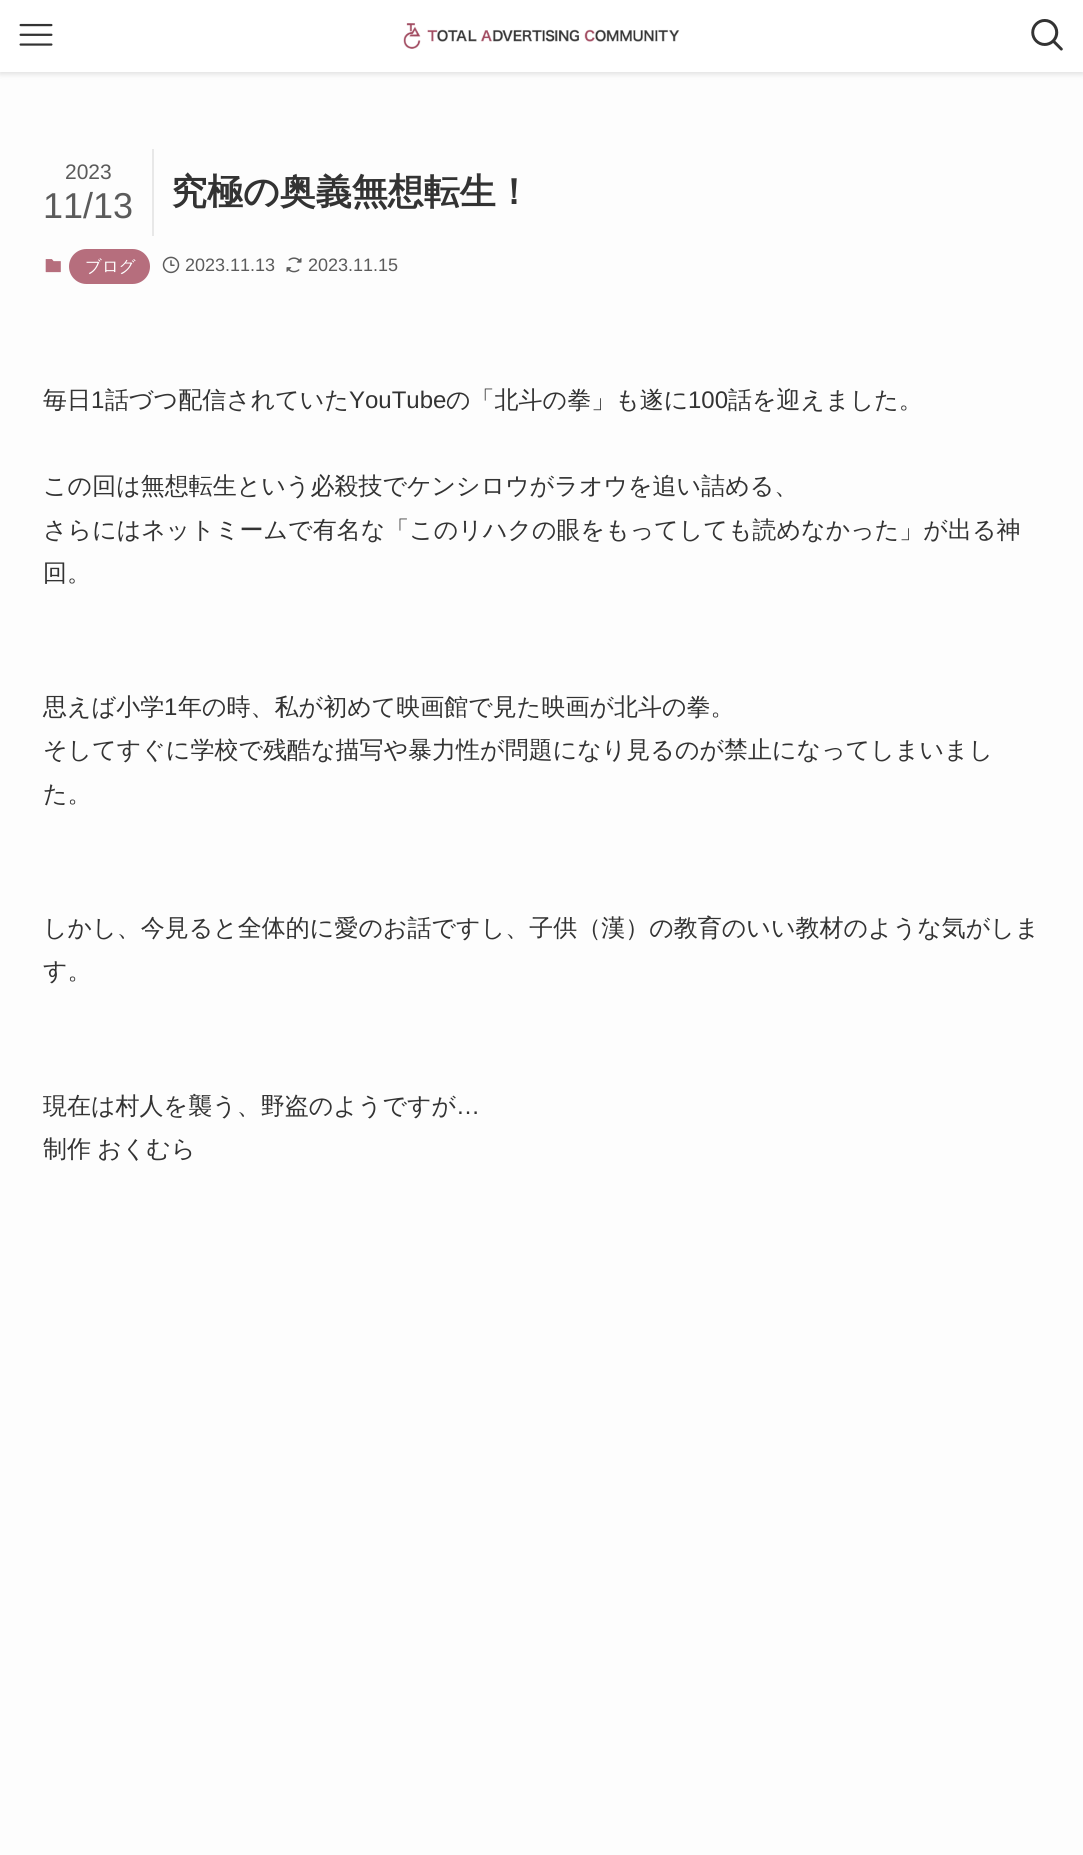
import math
import cairo

surface = cairo.ImageSurface(cairo.FORMAT_RGB24, 1083, 1855)
cr = cairo.Context(surface)
options = cairo.FontOptions()
options.set_hint_metrics(cairo.HINT_METRICS_OFF)
options.set_hint_style(cairo.HINT_STYLE_NONE)
cr.set_font_options(options)
cr.set_miter_limit(4)


def rgb(code):
    cr.set_source_rgb(*(v / 255 for v in bytes.fromhex(code[-6:])))


def tracked(x, y, s, letter, word):
    cr.move_to(x, y)
    for ch in s:
        cr.show_text(ch)
        cr.rel_move_to(letter + word * (ch == ' '), 0)


def rrect(x, y, w, h, r):
    cr.new_sub_path()
    for i, (u, v) in enumerate([(x + w - r, y + h - r), (x + r, y + h - r), (x + r, y + r), (x + w - r, y + r)]):
        cr.arc(u, v, r, i * math.pi / 2, (i + 1) * math.pi / 2)
    cr.close_path()


def soft_shadow(x, y, w, h, r, blur, alpha):
    cr.push_group_with_content(cairo.CONTENT_ALPHA)
    cr.set_operator(cairo.OPERATOR_SOURCE)
    for i in range(15, -16, -2):
        e = blur * i / 6
        if min(w, h) + 2 * e > 0:
            cr.set_source_rgba(0, 0, 0, alpha * math.erfc((i - 1) / 8.5) / 2)
            rrect(x - e, y - e, w + 2 * e, h + 2 * e, max(0, min(r + e + blur * .6, min(w, h) / 2 + e)))
            cr.fill()
    cr.mask(cr.pop_group())


def image(path, x, y, w, h):
    cr.save()
    cr.set_source_surface(cairo.ImageSurface.create_from_png(path), x, y)
    cr.rectangle(x, y, w, h)
    cr.fill()
    cr.restore()


rgb("#fdfdfd")
cr.paint()
rgb("#000000")
soft_shadow(0, 2, 1083, 72, 0, 3, 0.12)
rgb("#ffffff")
cr.rectangle(0, 0, 1083, 72)
cr.fill()
image("img/1.png", 19, 23, 34, 23)
image("img/2.png", 403, 23, 277, 26)
image("img/3.png", 1031, 19, 32, 32)
rgb("#e8e8e8")
cr.rectangle(152, 149, 2, 87)
cr.fill()
image("img/4.png", 45, 259, 16, 14)
rgb("#b66e7d")
rrect(69, 249, 81, 35, 17.5)
cr.fill()
image("img/5.png", 162, 256, 18, 18)
image("img/6.png", 286, 257, 16, 16)
cr.select_font_face("Liberation Sans")
cr.set_font_size(21)
rgb("#5b5b5b")
cr.move_to(65, 179)
cr.show_text("2023")
cr.set_font_size(36)
cr.move_to(43, 218)
cr.show_text("11/13")
cr.select_font_face("WenQuanYi Zen Hei", cairo.FONT_SLANT_NORMAL, cairo.FONT_WEIGHT_BOLD)
rgb("#333333")
cr.move_to(171, 204)
cr.show_text("究極の奥義無想転生！")
cr.select_font_face("WenQuanYi Zen Hei Medium")
cr.set_font_size(16.5)
rgb("#ffffff")
cr.move_to(85, 272)
cr.show_text("ブログ")
cr.select_font_face("Liberation Sans")
cr.set_font_size(18)
rgb("#5b5b5b")
cr.move_to(185, 271)
cr.show_text("2023.11.13")
cr.move_to(308, 271)
cr.show_text("2023.11.15")
cr.select_font_face("WenQuanYi Zen Hei Medium")
cr.set_font_size(24)
rgb("#333333")
cr.move_to(43, 408)
cr.show_text("毎日")
cr.select_font_face("Liberation Sans")
cr.move_to(91, 408)
cr.show_text("1")
cr.select_font_face("WenQuanYi Zen Hei Medium")
cr.move_to(105, 408)
cr.show_text("話づつ配信されていた")
cr.select_font_face("Liberation Sans")
cr.move_to(349, 408)
cr.show_text("YouTube")
cr.select_font_face("WenQuanYi Zen Hei Medium")
cr.move_to(446, 408)
cr.show_text("の「北斗の拳」も遂に")
cr.select_font_face("Liberation Sans")
cr.move_to(688, 408)
cr.show_text("100")
cr.select_font_face("WenQuanYi Zen Hei Medium")
for x, y, s in [
    (728, 408, "話を迎えました。"),
    (43, 494, "この回は無想転生という必殺技でケンシロウがラオウを追い詰める、"),
    (43, 538, "さらにはネットミームで有名な「このリハクの眼をもってしても読めなかった」が出る神"),
    (43, 581, "回。"),
    (43, 715, "思えば小学"),
]:
    cr.move_to(x, y)
    cr.show_text(s)
cr.select_font_face("Liberation Sans")
cr.move_to(164, 715)
cr.show_text("1")
cr.select_font_face("WenQuanYi Zen Hei Medium")
for x, y, s in [
    (178, 715, "年の時、私が初めて映画館で見た映画が北斗の拳。"),
    (43, 758, "そしてすぐに学校で残酷な描写や暴力性が問題になり見るのが禁止になってしまいまし"),
    (43, 802, "た。"),
    (43, 936, "しかし、今見ると全体的に愛のお話ですし、子供（漢）の教育のいい教材のような気がしま"),
    (43, 979, "す。"),
    (43, 1114, "現在は村人を襲う、野盗のようですが"),
]:
    cr.move_to(x, y)
    cr.show_text(s)
cr.select_font_face("Liberation Sans")
cr.move_to(456, 1114)
cr.show_text("…")
cr.select_font_face("WenQuanYi Zen Hei Medium")
tracked(43, 1157, "制作 おくむら", 0, -1)
surface.write_to_png("page.png")
